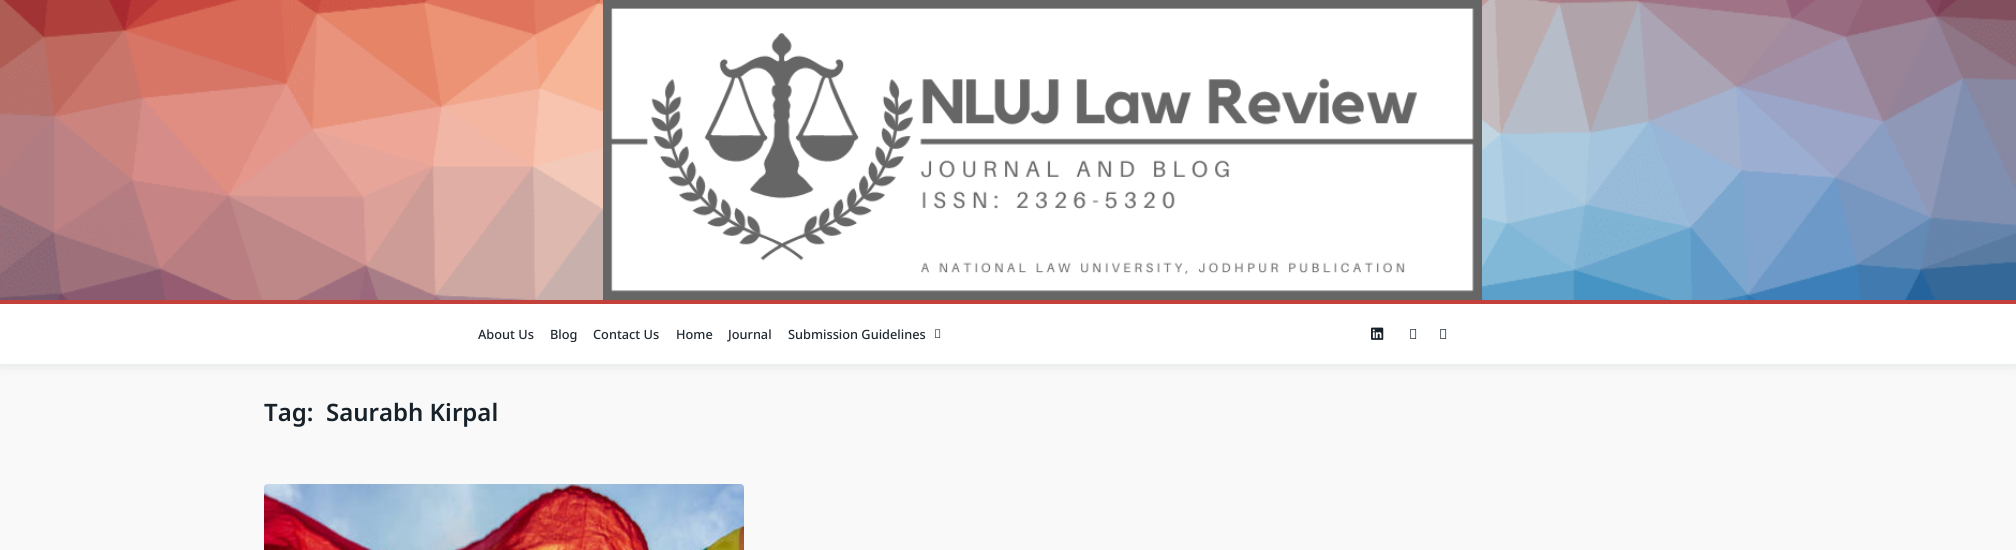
import math
import cairo

surface = cairo.ImageSurface(cairo.FORMAT_RGB24, 2016, 550)
cr = cairo.Context(surface)
options = cairo.FontOptions()
options.set_hint_metrics(cairo.HINT_METRICS_OFF)
options.set_hint_style(cairo.HINT_STYLE_NONE)
cr.set_font_options(options)
cr.set_miter_limit(4)


def rgb(code):
    cr.set_source_rgb(*(v / 255 for v in bytes.fromhex(code[-6:])))


def rrect(x, y, w, h, r):
    cr.new_sub_path()
    for i, (u, v) in enumerate([(x + w - r, y + h - r), (x + r, y + h - r), (x + r, y + r), (x + w - r, y + r)]):
        cr.arc(u, v, r, i * math.pi / 2, (i + 1) * math.pi / 2)
    cr.close_path()


def soft_shadow(x, y, w, h, r, blur, alpha):
    cr.push_group_with_content(cairo.CONTENT_ALPHA)
    cr.set_operator(cairo.OPERATOR_SOURCE)
    for i in range(15, -16, -2):
        e = blur * i / 6
        if min(w, h) + 2 * e > 0:
            cr.set_source_rgba(0, 0, 0, alpha * math.erfc((i - 1) / 8.5) / 2)
            rrect(x - e, y - e, w + 2 * e, h + 2 * e, max(0, min(r + e + blur * .6, min(w, h) / 2 + e)))
            cr.fill()
    cr.mask(cr.pop_group())


def image(path, x, y, w, h):
    cr.save()
    cr.set_source_surface(cairo.ImageSurface.create_from_png(path), x, y)
    cr.rectangle(x, y, w, h)
    cr.fill()
    cr.restore()


rgb("#f8f9f8")
cr.paint()
rgb("#2c3e50")
soft_shadow(0, 302, 2016, 64, 0, 5, 0.1)
image("img/1.png", 0, 0, 2016, 300)
image("img/2.png", 603, 0, 879, 300)
rgb("#ffffff")
cr.rectangle(0, 304, 2016, 60)
cr.fill()
rgb("#c4403b")
cr.rectangle(0, 300, 2016, 4)
cr.fill()
image("img/3.png", 935, 329, 6, 9)
image("img/4.png", 1371, 327, 13, 13)
image("img/5.png", 1410, 329, 7, 10)
image("img/5.png", 1440, 329, 7, 10)
image("img/6.png", 264, 484, 480, 66)
cr.select_font_face("Noto Sans Medium")
cr.set_font_size(12.75)
rgb("#212a33")
for x, y, s in [
    (478, 339, "About Us"),
    (550, 339, "Blog"),
    (593, 339, "Contact Us"),
    (676, 339, "Home"),
    (728, 339, "Journal"),
    (788, 339, "Submission Guidelines"),
]:
    cr.move_to(x, y)
    cr.show_text(s)
cr.select_font_face("Noto Sans SemiBold")
cr.set_font_size(24)
rgb("#17212a")
cr.move_to(264, 421)
cr.show_text("Tag:")
cr.move_to(326, 421)
cr.show_text("Saurabh Kirpal")
surface.write_to_png("page.png")
